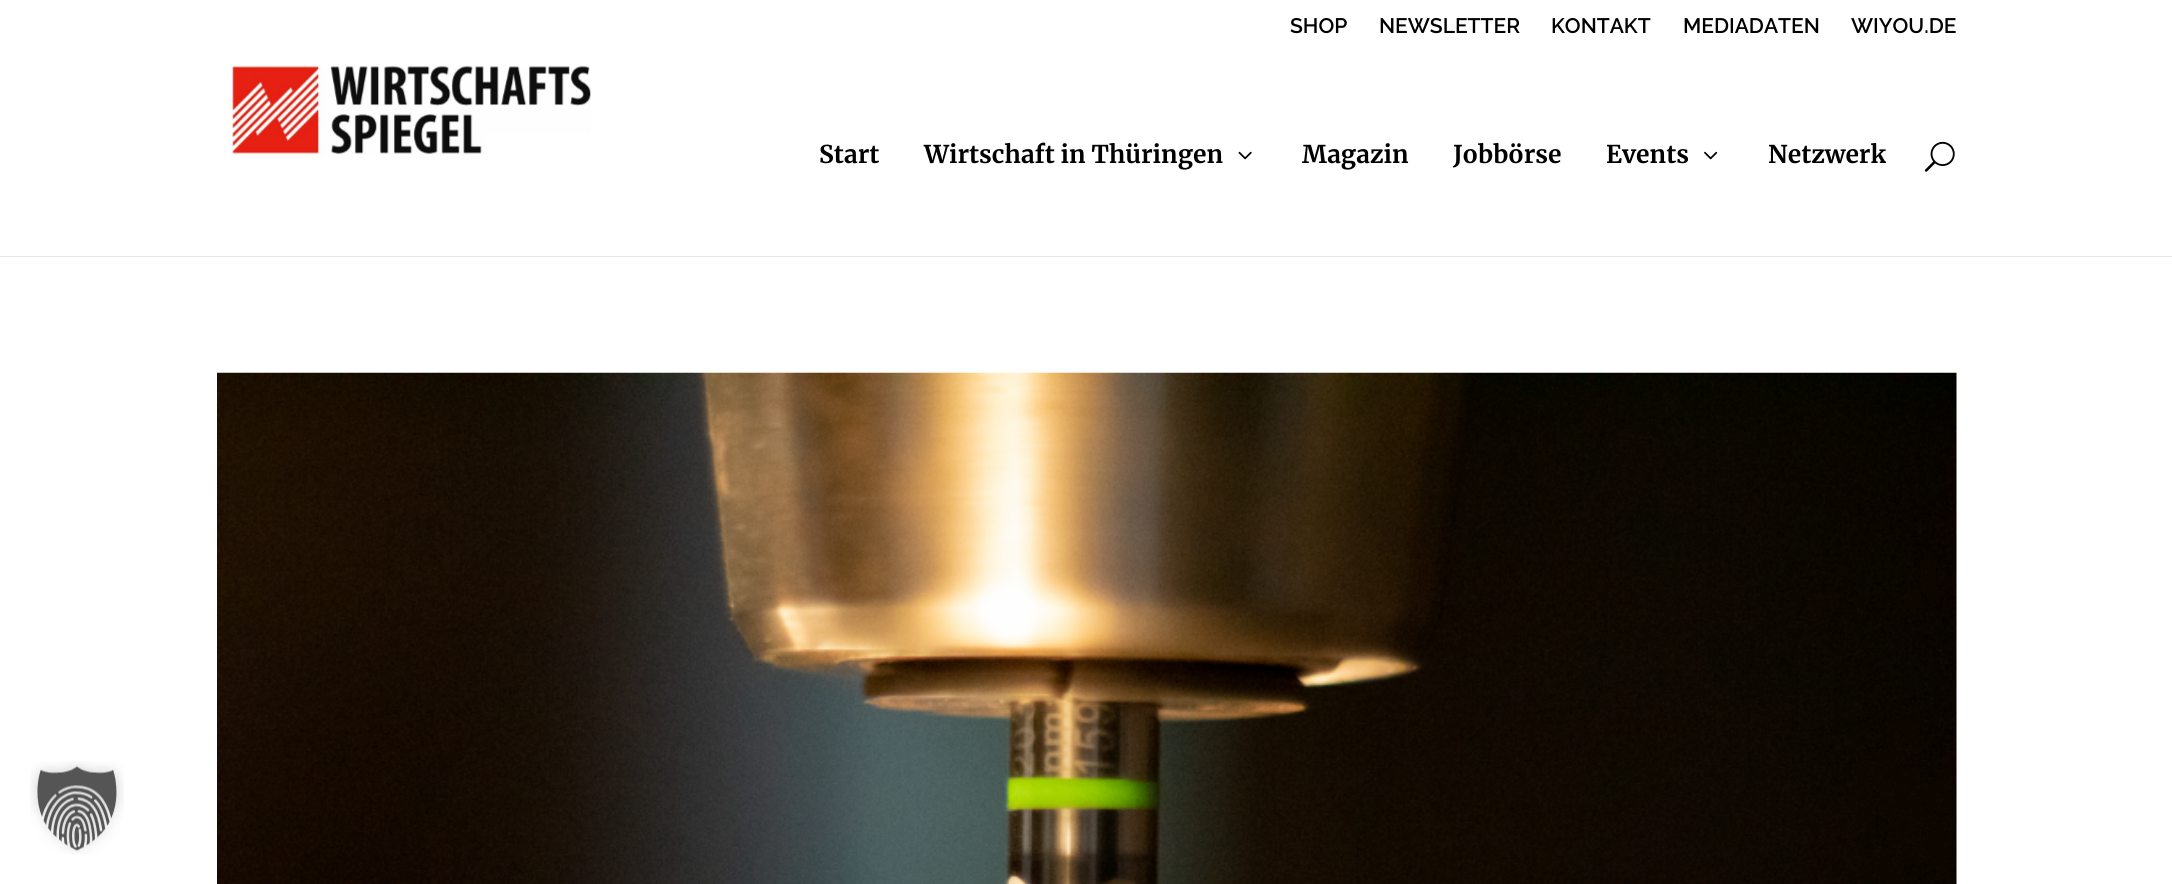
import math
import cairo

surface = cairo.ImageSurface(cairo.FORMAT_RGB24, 2172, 884)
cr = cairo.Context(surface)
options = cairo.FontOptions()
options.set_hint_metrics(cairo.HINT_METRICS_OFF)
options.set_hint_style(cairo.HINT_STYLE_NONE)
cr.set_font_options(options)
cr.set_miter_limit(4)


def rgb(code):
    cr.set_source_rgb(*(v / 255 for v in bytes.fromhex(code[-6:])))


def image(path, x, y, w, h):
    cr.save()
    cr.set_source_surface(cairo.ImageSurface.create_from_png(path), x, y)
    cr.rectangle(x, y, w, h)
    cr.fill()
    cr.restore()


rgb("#ffffff")
cr.paint()
rgb("#e6e6e6")
cr.new_path()
cr.move_to(0, 256)
cr.line_to(0, 257)
cr.line_to(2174, 257)
cr.line_to(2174, 54)
cr.line_to(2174, 256)
cr.close_path()
cr.fill()
image("img/1.png", 230, 65, 361, 92)
image("img/2.png", 1238, 151, 14, 9)
image("img/3.png", 1704, 151, 14, 9)
image("img/4.png", 1924, 141, 31, 31)
image("img/5.png", 217, 372, 1740, 512)
image("img/6.png", 30, 761, 94, 93)
cr.select_font_face("Raleway SemiBold")
cr.set_font_size(21)
rgb("#000000")
for x, y, s in [
    (1290, 33, "SHOP"),
    (1379, 33, "NEWSLETTER"),
    (1551, 33, "KONTAKT"),
    (1683, 33, "MEDIADATEN"),
    (1851, 33, "WIYOU.DE"),
]:
    cr.move_to(x, y)
    cr.show_text(s)
cr.select_font_face("Merriweather", cairo.FONT_SLANT_NORMAL, cairo.FONT_WEIGHT_BOLD)
cr.set_font_size(24.5)
for x, y, s in [
    (819, 163, "Start"),
    (924, 163, "Wirtschaft in Thüringen"),
    (1302, 163, "Magazin"),
    (1453, 163, "Jobbörse"),
    (1606, 163, "Events"),
    (1768, 163, "Netzwerk"),
]:
    cr.move_to(x, y)
    cr.show_text(s)
surface.write_to_png("page.png")
